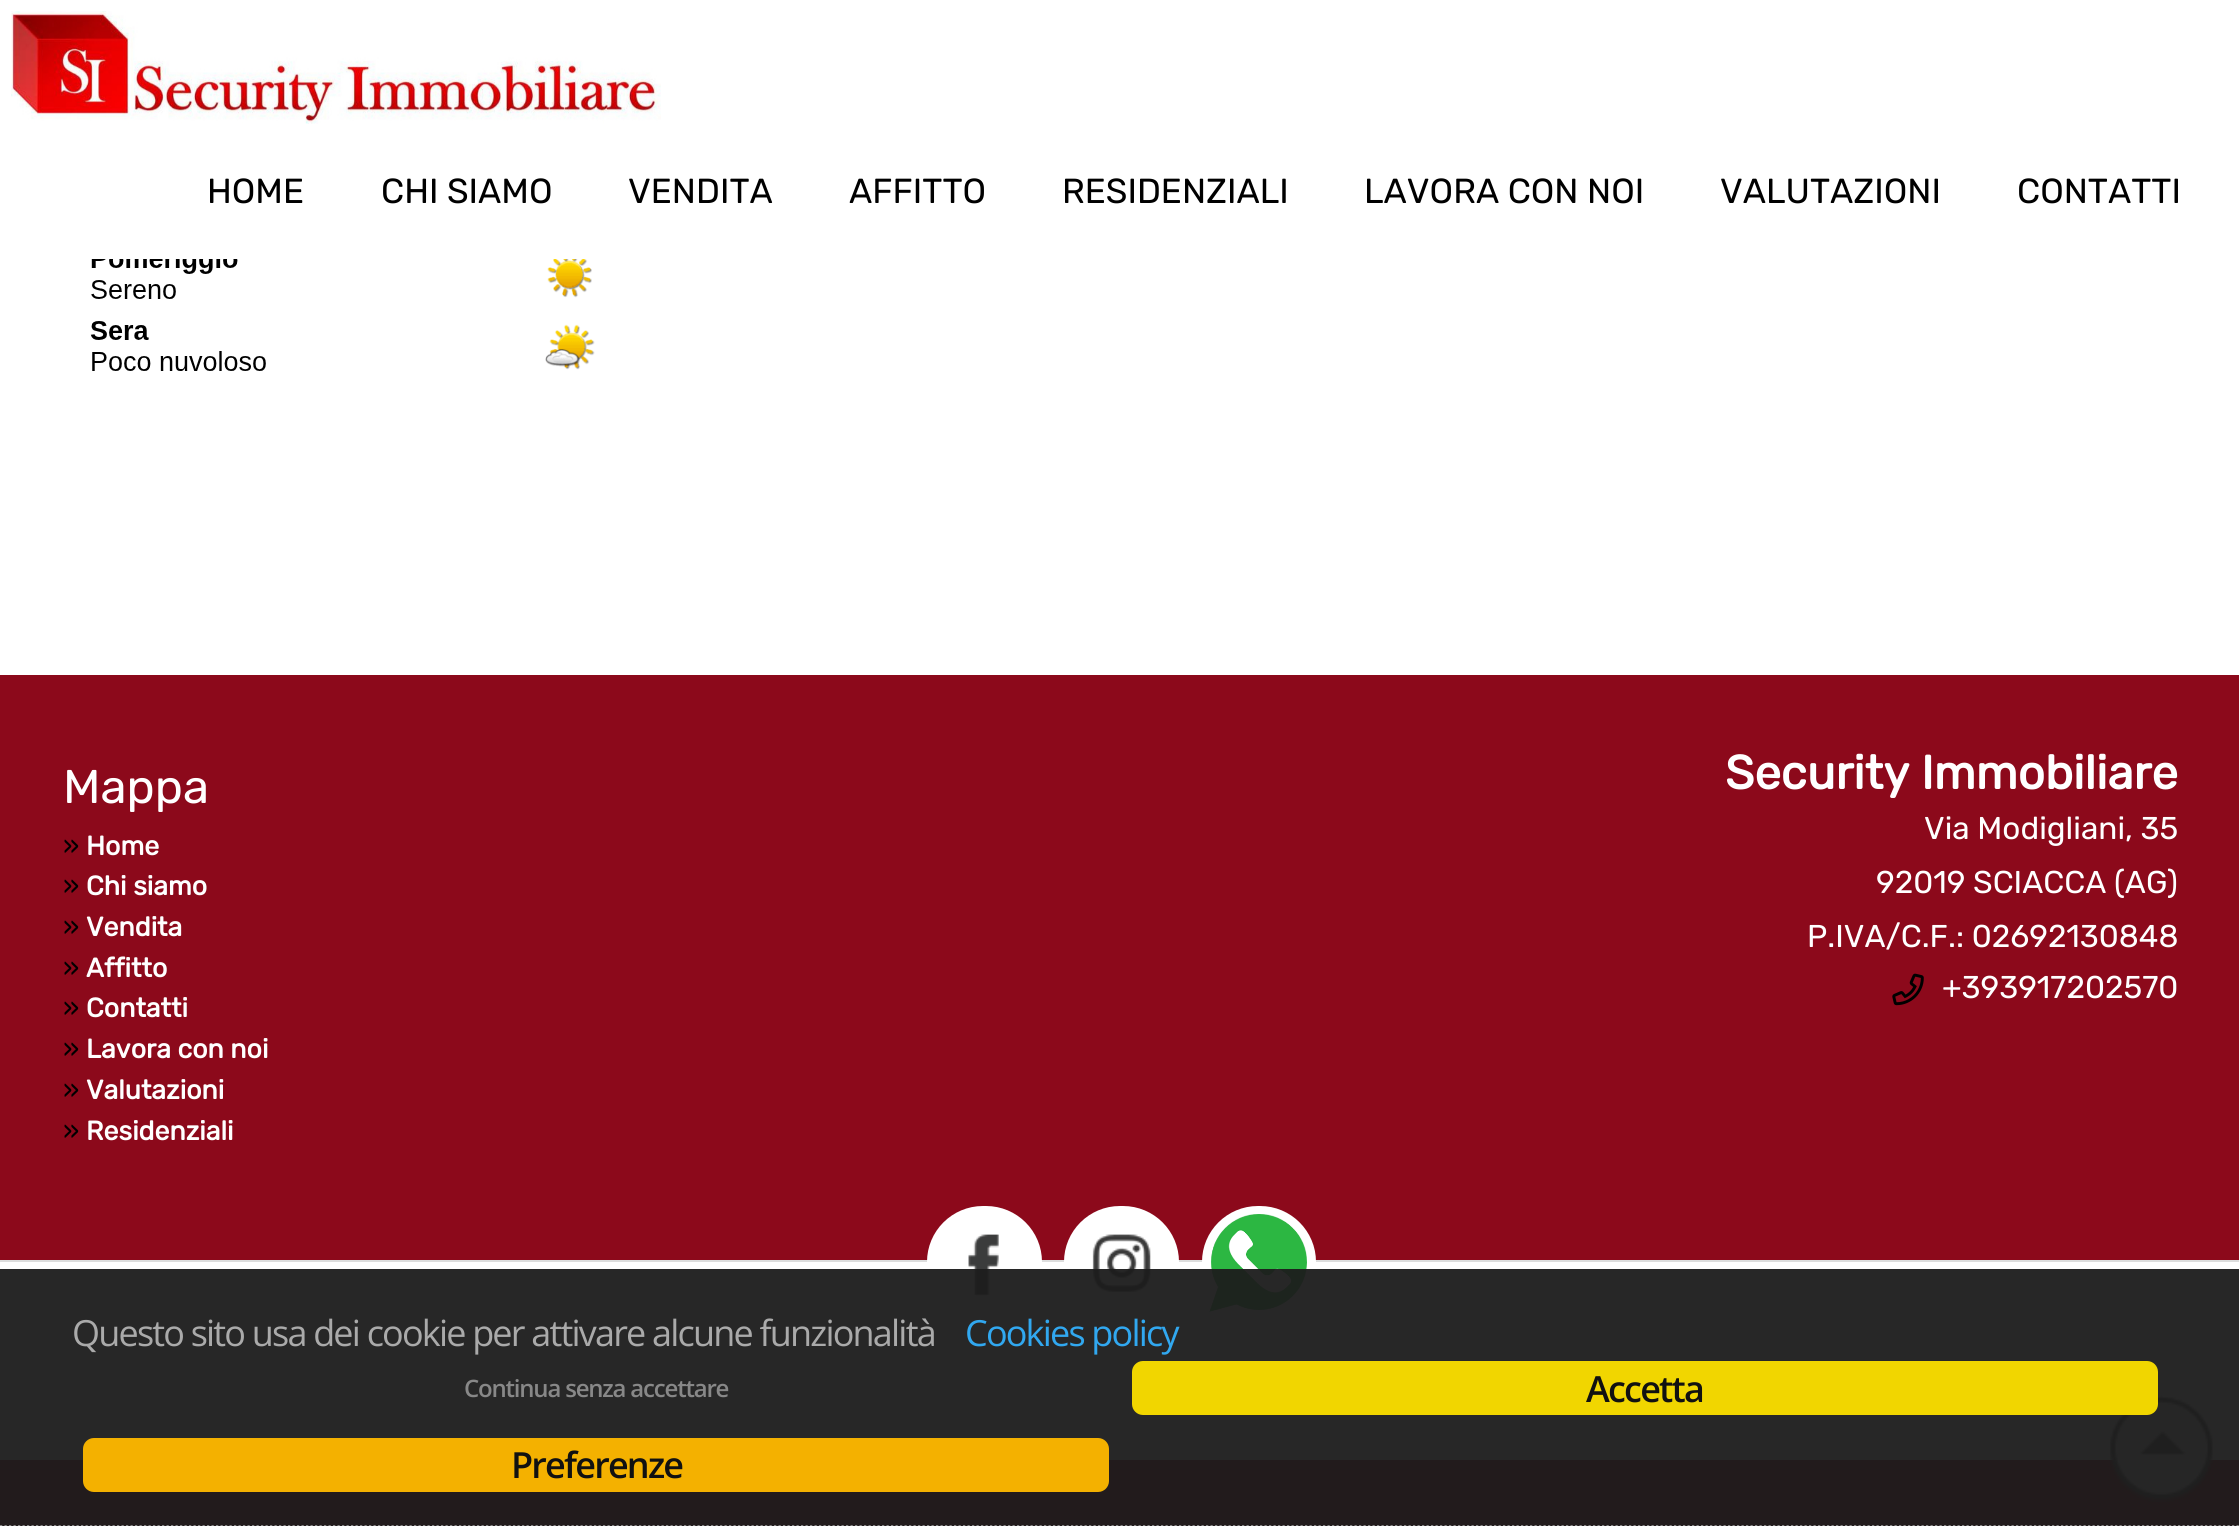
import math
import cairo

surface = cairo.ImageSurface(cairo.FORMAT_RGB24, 2239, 1526)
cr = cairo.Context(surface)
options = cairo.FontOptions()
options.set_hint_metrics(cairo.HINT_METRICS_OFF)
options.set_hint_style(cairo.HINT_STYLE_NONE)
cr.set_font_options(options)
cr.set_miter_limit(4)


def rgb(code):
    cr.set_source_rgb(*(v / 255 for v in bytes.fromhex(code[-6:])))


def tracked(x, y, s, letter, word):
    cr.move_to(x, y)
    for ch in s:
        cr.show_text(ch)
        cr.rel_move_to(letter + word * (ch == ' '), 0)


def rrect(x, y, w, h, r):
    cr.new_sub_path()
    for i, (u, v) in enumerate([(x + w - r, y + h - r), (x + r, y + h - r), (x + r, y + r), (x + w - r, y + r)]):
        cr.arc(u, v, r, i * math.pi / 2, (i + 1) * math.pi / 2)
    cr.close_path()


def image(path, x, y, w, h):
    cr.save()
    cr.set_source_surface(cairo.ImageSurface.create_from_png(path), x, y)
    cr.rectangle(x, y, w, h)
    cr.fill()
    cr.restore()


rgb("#ffffff")
cr.paint()
image("img/1.png", 11, 11, 650, 113)
image("img/2.png", 86, 259, 517, 112)
rgb("#8c091b")
cr.rectangle(0, 675, 2239, 851)
cr.fill()
image("img/3.png", 1892, 973, 32, 33)
rgb("#ffffff")
cr.rectangle(0, 1262, 2239, 198)
cr.fill()
rgb("#dddddd")
cr.rectangle(0, 1260, 2239, 2)
cr.fill()
rgb("#ffffff")
rrect(927, 1206, 115, 115, 56)
cr.fill()
image("img/4.png", 968, 1234, 31, 62)
rrect(1064, 1206, 115, 115, 56)
cr.fill()
image("img/5.png", 1092, 1234, 59, 58)
rrect(1202, 1206, 114, 115, 56)
cr.fill()
image("img/6.png", 1209, 1214, 98, 98)
image("img/7.png", 2109, 1397, 104, 105)
image("img/8.png", 2110, 1395, 103, 105)
cr.set_source_rgba(0.114, 0.114, 0.114, 0.95)
cr.rectangle(0, 1269, 2239, 257)
cr.fill()
cr.new_path()
cr.move_to(0, 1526.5)
cr.line_to(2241, 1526.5)
rgb("#cccccc")
cr.set_line_width(2.2)
cr.set_dash([2.25, 2.25])
cr.stroke()
rgb("#f1d600")
rrect(1132, 1361, 1026, 54, 11)
cr.fill()
rgb("#f4b100")
rrect(83, 1438, 1026, 54, 11)
cr.fill()
cr.select_font_face("Rubik Light")
cr.set_font_size(34.75)
rgb("#000000")
for x, y, s in [
    (207, 203, "HOME"),
    (381, 203, "CHI SIAMO"),
    (628, 203, "VENDITA"),
    (849, 203, "AFFITTO"),
    (1062, 203, "RESIDENZIALI"),
    (1364, 203, "LAVORA CON NOI"),
    (1720, 203, "VALUTAZIONI"),
    (2017, 203, "CONTATTI"),
]:
    cr.move_to(x, y)
    cr.show_text(s)
cr.set_font_size(47.25)
rgb("#ffffff")
cr.move_to(63, 803)
cr.show_text("Mappa")
cr.set_font_size(26.75)
rgb("#000000")
cr.move_to(63, 855)
cr.show_text("»")
cr.select_font_face("Rubik", cairo.FONT_SLANT_NORMAL, cairo.FONT_WEIGHT_BOLD)
rgb("#ffffff")
cr.move_to(86, 855)
cr.show_text("Home")
cr.select_font_face("Rubik Light")
rgb("#000000")
cr.move_to(63, 895)
cr.show_text("»")
cr.select_font_face("Rubik", cairo.FONT_SLANT_NORMAL, cairo.FONT_WEIGHT_BOLD)
rgb("#ffffff")
cr.move_to(86, 895)
cr.show_text("Chi siamo")
cr.select_font_face("Rubik Light")
rgb("#000000")
cr.move_to(63, 936)
cr.show_text("»")
cr.select_font_face("Rubik", cairo.FONT_SLANT_NORMAL, cairo.FONT_WEIGHT_BOLD)
rgb("#ffffff")
cr.move_to(86, 936)
cr.show_text("Vendita")
cr.select_font_face("Rubik Light")
rgb("#000000")
cr.move_to(63, 977)
cr.show_text("»")
cr.select_font_face("Rubik", cairo.FONT_SLANT_NORMAL, cairo.FONT_WEIGHT_BOLD)
rgb("#ffffff")
cr.move_to(86, 977)
cr.show_text("Affitto")
cr.select_font_face("Rubik Light")
rgb("#000000")
cr.move_to(63, 1017)
cr.show_text("»")
cr.select_font_face("Rubik", cairo.FONT_SLANT_NORMAL, cairo.FONT_WEIGHT_BOLD)
rgb("#ffffff")
cr.move_to(86, 1017)
cr.show_text("Contatti")
cr.select_font_face("Rubik Light")
rgb("#000000")
cr.move_to(63, 1058)
cr.show_text("»")
cr.select_font_face("Rubik", cairo.FONT_SLANT_NORMAL, cairo.FONT_WEIGHT_BOLD)
rgb("#ffffff")
cr.move_to(86, 1058)
cr.show_text("Lavora con noi")
cr.select_font_face("Rubik Light")
rgb("#000000")
cr.move_to(63, 1099)
cr.show_text("»")
cr.select_font_face("Rubik", cairo.FONT_SLANT_NORMAL, cairo.FONT_WEIGHT_BOLD)
rgb("#ffffff")
cr.move_to(86, 1099)
cr.show_text("Valutazioni")
cr.select_font_face("Rubik Light")
rgb("#000000")
cr.move_to(63, 1140)
cr.show_text("»")
cr.select_font_face("Rubik", cairo.FONT_SLANT_NORMAL, cairo.FONT_WEIGHT_BOLD)
rgb("#ffffff")
cr.move_to(86, 1140)
cr.show_text("Residenziali")
cr.set_font_size(47.25)
cr.move_to(1725, 789)
cr.show_text("Security Immobiliare")
cr.select_font_face("Rubik Light")
cr.set_font_size(31.5)
for x, y, s in [
    (1924, 839, "Via Modigliani, 35"),
    (1876, 893, "92019 SCIACCA (AG)"),
    (1807, 947, "P.IVA/C.F.: 02692130848"),
    (1942, 998, "+393917202570"),
]:
    cr.move_to(x, y)
    cr.show_text(s)
cr.select_font_face("Open Sans")
cr.set_font_size(36)
rgb("#aaaaaa")
tracked(72, 1346, "Questo sito usa dei cookie per attivare alcune funzionalità", -1.8, 0)
rgb("#31a8f0")
tracked(965, 1346, "Cookies policy", -1.8, 0)
cr.select_font_face("Open Sans SemiBold")
cr.set_font_size(24)
rgb("#888888")
tracked(464, 1397, "Continua senza accettare", -1.2, 0)
cr.set_font_size(36)
rgb("#111111")
tracked(1586, 1402, "Accetta", -1.8, 0)
tracked(511, 1478, "Preferenze", -1.8, 0)
surface.write_to_png("page.png")
